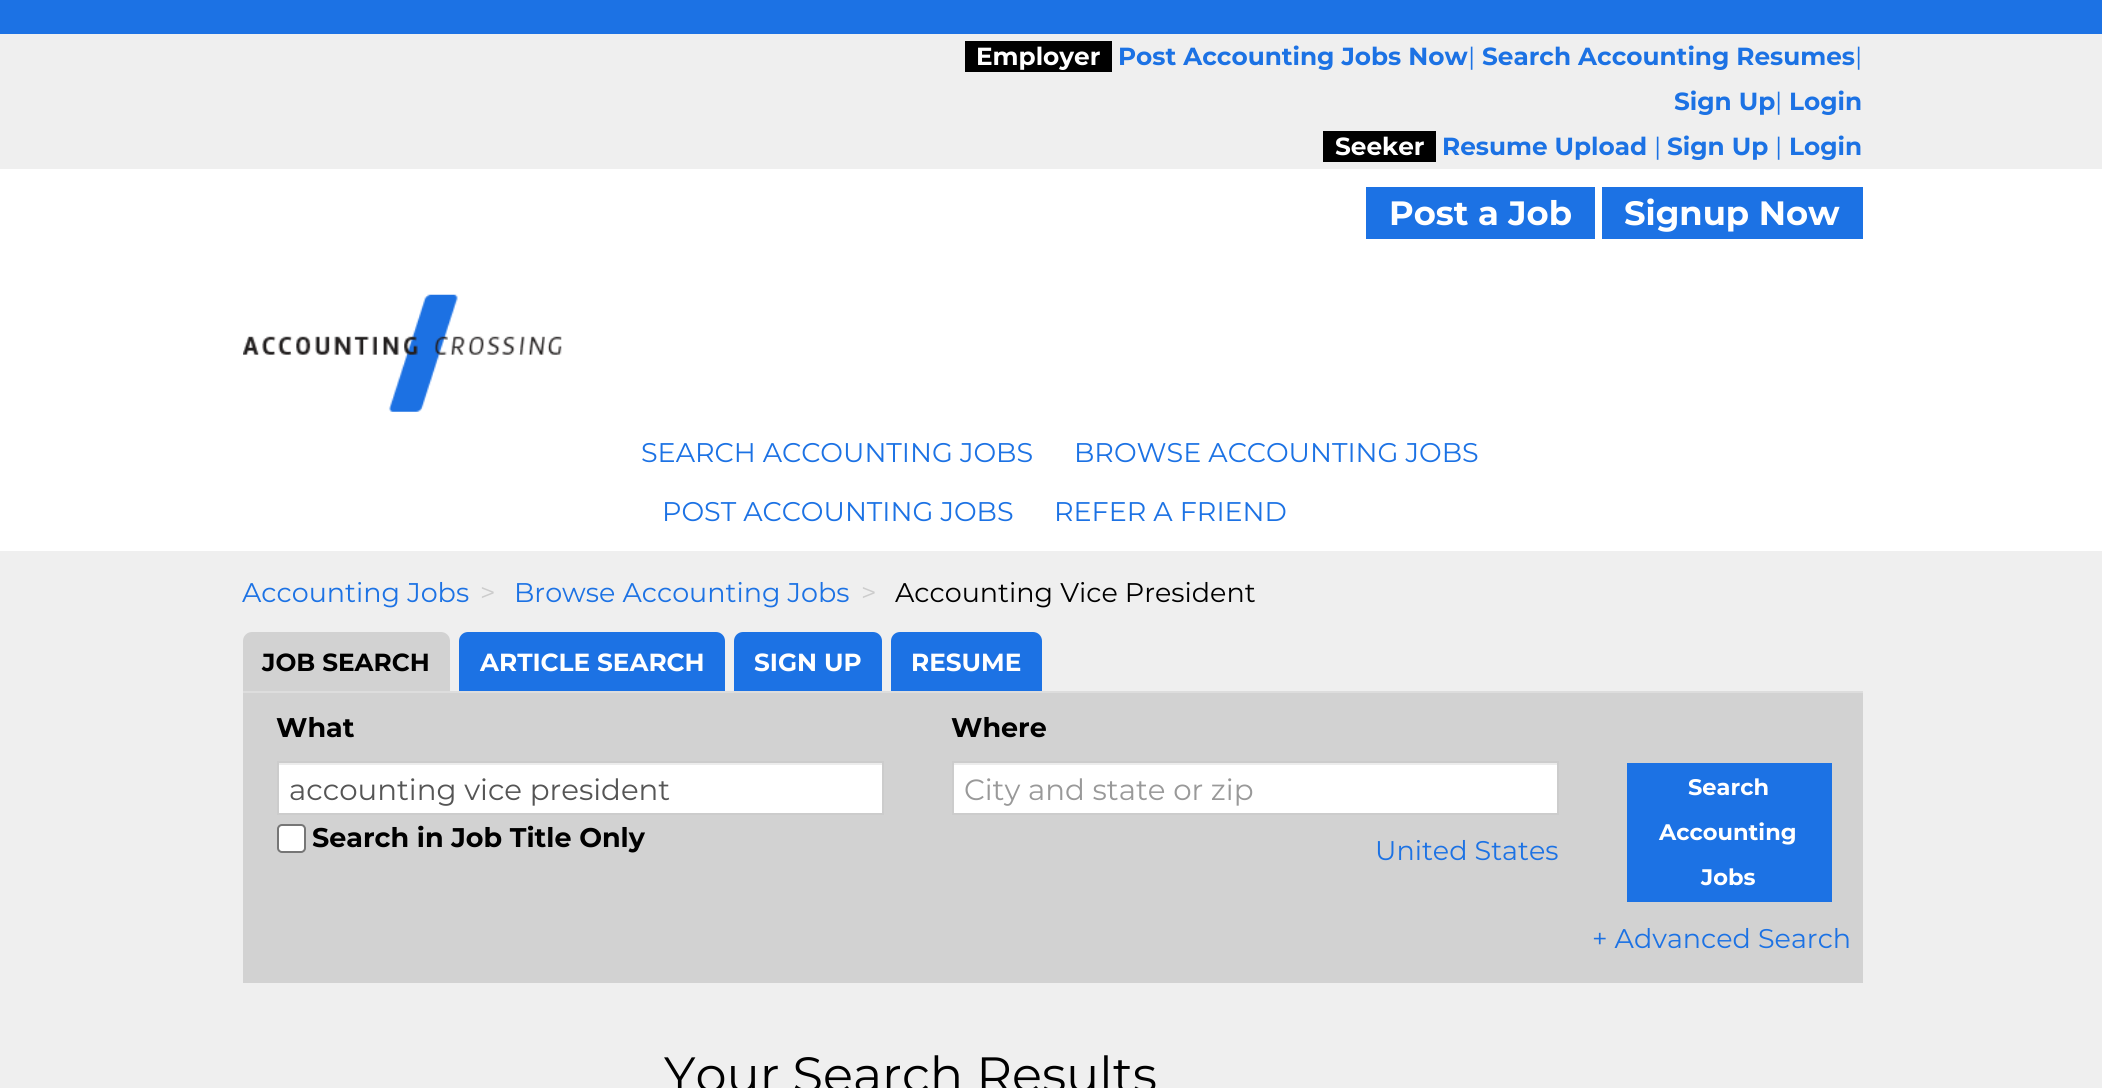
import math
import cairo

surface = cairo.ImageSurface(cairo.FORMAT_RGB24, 2102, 1088)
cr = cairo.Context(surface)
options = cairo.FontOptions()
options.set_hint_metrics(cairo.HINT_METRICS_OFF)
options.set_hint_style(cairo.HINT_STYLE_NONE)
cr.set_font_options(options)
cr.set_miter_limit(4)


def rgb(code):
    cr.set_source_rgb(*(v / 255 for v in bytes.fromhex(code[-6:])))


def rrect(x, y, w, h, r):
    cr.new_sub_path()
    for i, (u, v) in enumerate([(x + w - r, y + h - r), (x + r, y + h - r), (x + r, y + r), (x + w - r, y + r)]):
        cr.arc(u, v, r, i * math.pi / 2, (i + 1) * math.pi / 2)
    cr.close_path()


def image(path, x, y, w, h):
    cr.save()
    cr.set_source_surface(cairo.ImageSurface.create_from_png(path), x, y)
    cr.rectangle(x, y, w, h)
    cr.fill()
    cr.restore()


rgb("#ffffff")
cr.paint()
for x, y, w, h, color in [
    (0, 34, 2102, 135, "#efefef"),
    (0, 0, 2102, 34, "#1c72e4"),
    (965, 41, 147, 31, "#000000"),
    (1323, 131, 113, 31, "#000000"),
    (1366, 187, 229, 52, "#1c72e4"),
    (1602, 187, 261, 52, "#1c72e4"),
]:
    rgb(color)
    cr.rectangle(x, y, w, h)
    cr.fill()
image("img/1.png", 243, 294, 319, 118)
rgb("#efefef")
cr.rectangle(0, 551, 2102, 537)
cr.fill()
rgb("#dddddd")
cr.rectangle(243, 691, 1620, 2)
cr.fill()
rgb("#d2d2d2")
cr.new_path()
cr.move_to(252, 632)
cr.line_to(441, 632)
cr.curve_to(446, 632, 450, 636, 450, 641)
cr.line_to(450, 691)
cr.line_to(243, 691)
cr.line_to(243, 641)
cr.curve_to(243, 636, 247, 632, 252, 632)
cr.close_path()
cr.fill()
rgb("#1c72e4")
cr.new_path()
cr.move_to(468, 632)
cr.line_to(716, 632)
cr.curve_to(721, 632, 725, 636, 725, 641)
cr.line_to(725, 691)
cr.line_to(459, 691)
cr.line_to(459, 641)
cr.curve_to(459, 636, 463, 632, 468, 632)
cr.close_path()
cr.fill()
cr.new_path()
cr.move_to(743, 632)
cr.line_to(873, 632)
cr.curve_to(878, 632, 882, 636, 882, 641)
cr.line_to(882, 691)
cr.line_to(734, 691)
cr.line_to(734, 641)
cr.curve_to(734, 636, 738, 632, 743, 632)
cr.close_path()
cr.fill()
cr.new_path()
cr.move_to(900, 632)
cr.line_to(1033, 632)
cr.curve_to(1038, 632, 1042, 636, 1042, 641)
cr.line_to(1042, 691)
cr.line_to(891, 691)
cr.line_to(891, 641)
cr.curve_to(891, 636, 895, 632, 900, 632)
cr.close_path()
cr.fill()
for x, y, w, h, color in [
    (243, 693, 1620, 290, "#d2d2d2"),
    (279, 765, 603, 48, "#ffffff"),
    (279, 763, 603, 2, "#ececec"),
]:
    rgb(color)
    cr.rectangle(x, y, w, h)
    cr.fill()
cr.rectangle(278, 762, 605, 52)
rgb("#cccccc")
cr.stroke()
rgb("#ffffff")
rrect(278, 825, 27, 27, 4)
cr.fill_preserve()
rgb("#767676")
cr.stroke()
rgb("#ffffff")
cr.rectangle(954, 765, 603, 48)
cr.fill()
rgb("#ececec")
cr.rectangle(954, 763, 603, 2)
cr.fill()
cr.rectangle(953, 762, 605, 52)
rgb("#cccccc")
cr.stroke()
rgb("#1c72e4")
cr.rectangle(1627, 763, 205, 139)
cr.fill()
cr.select_font_face("Montserrat", cairo.FONT_SLANT_NORMAL, cairo.FONT_WEIGHT_BOLD)
cr.set_font_size(24.75)
rgb("#ffffff")
cr.move_to(976, 65)
cr.show_text("Employer")
rgb("#1c72e4")
cr.move_to(1118, 65)
cr.show_text("Post Accounting Jobs Now")
cr.select_font_face("Montserrat")
cr.move_to(1468, 65)
cr.show_text("|")
cr.select_font_face("Montserrat", cairo.FONT_SLANT_NORMAL, cairo.FONT_WEIGHT_BOLD)
cr.move_to(1482, 65)
cr.show_text("Search Accounting Resumes")
cr.select_font_face("Montserrat")
cr.move_to(1855, 65)
cr.show_text("|")
cr.select_font_face("Montserrat", cairo.FONT_SLANT_NORMAL, cairo.FONT_WEIGHT_BOLD)
cr.move_to(1674, 110)
cr.show_text("Sign Up")
cr.select_font_face("Montserrat")
cr.move_to(1775, 110)
cr.show_text("|")
cr.select_font_face("Montserrat", cairo.FONT_SLANT_NORMAL, cairo.FONT_WEIGHT_BOLD)
cr.move_to(1789, 110)
cr.show_text("Login")
rgb("#ffffff")
cr.move_to(1335, 155)
cr.show_text("Seeker")
rgb("#1c72e4")
cr.move_to(1442, 155)
cr.show_text("Resume Upload")
cr.select_font_face("Montserrat")
cr.move_to(1654, 155)
cr.show_text("|")
cr.select_font_face("Montserrat", cairo.FONT_SLANT_NORMAL, cairo.FONT_WEIGHT_BOLD)
cr.move_to(1667, 155)
cr.show_text("Sign Up")
cr.select_font_face("Montserrat")
cr.move_to(1775, 155)
cr.show_text("|")
cr.select_font_face("Montserrat", cairo.FONT_SLANT_NORMAL, cairo.FONT_WEIGHT_BOLD)
cr.move_to(1789, 155)
cr.show_text("Login")
cr.set_font_size(33.75)
rgb("#ffffff")
cr.move_to(1389, 225)
cr.show_text("Post a Job")
cr.move_to(1624, 225)
cr.show_text("Signup Now")
cr.select_font_face("Montserrat")
cr.set_font_size(27)
rgb("#1c72e4")
for x, y, s in [
    (641, 462, "SEARCH ACCOUNTING JOBS"),
    (1074, 462, "BROWSE ACCOUNTING JOBS"),
    (662, 521, "POST ACCOUNTING JOBS"),
    (1054, 521, "REFER A FRIEND"),
    (242, 602, "Accounting Jobs"),
]:
    cr.move_to(x, y)
    cr.show_text(s)
rgb("#cccccc")
cr.move_to(480, 602)
cr.show_text(">")
rgb("#1c72e4")
cr.move_to(514, 602)
cr.show_text("Browse Accounting Jobs")
rgb("#cccccc")
cr.move_to(861, 602)
cr.show_text(">")
rgb("#000000")
cr.move_to(895, 602)
cr.show_text("Accounting Vice President")
cr.select_font_face("Montserrat", cairo.FONT_SLANT_NORMAL, cairo.FONT_WEIGHT_BOLD)
cr.set_font_size(24.75)
cr.move_to(262, 671)
cr.show_text("JOB SEARCH")
rgb("#ffffff")
for x, y, s in [
    (480, 671, "ARTICLE SEARCH"),
    (754, 671, "SIGN UP"),
    (911, 671, "RESUME"),
]:
    cr.move_to(x, y)
    cr.show_text(s)
cr.set_font_size(27)
rgb("#000000")
cr.move_to(276, 737)
cr.show_text("What")
cr.select_font_face("Montserrat")
cr.set_font_size(29.25)
rgb("#555555")
cr.move_to(289, 800)
cr.show_text("accounting vice president")
cr.select_font_face("Montserrat", cairo.FONT_SLANT_NORMAL, cairo.FONT_WEIGHT_BOLD)
cr.set_font_size(27)
rgb("#000000")
cr.move_to(312, 847)
cr.show_text("Search in Job Title Only")
cr.move_to(951, 737)
cr.show_text("Where")
cr.select_font_face("Montserrat")
cr.set_font_size(29.25)
rgb("#999999")
cr.move_to(964, 800)
cr.show_text("City and state or zip")
cr.set_font_size(27)
rgb("#1c72e4")
cr.move_to(1375, 860)
cr.show_text("United States")
cr.select_font_face("Montserrat", cairo.FONT_SLANT_NORMAL, cairo.FONT_WEIGHT_BOLD)
cr.set_font_size(22.5)
rgb("#ffffff")
for x, y, s in [
    (1688, 795, "Search"),
    (1659, 840, "Accounting"),
    (1701, 885, "Jobs"),
]:
    cr.move_to(x, y)
    cr.show_text(s)
cr.select_font_face("Montserrat")
cr.set_font_size(27)
rgb("#1c72e4")
cr.move_to(1592, 948)
cr.show_text("+ Advanced Search")
cr.set_font_size(49.5)
rgb("#000000")
cr.move_to(664, 1092)
cr.show_text("Your Search Results")
surface.write_to_png("page.png")
